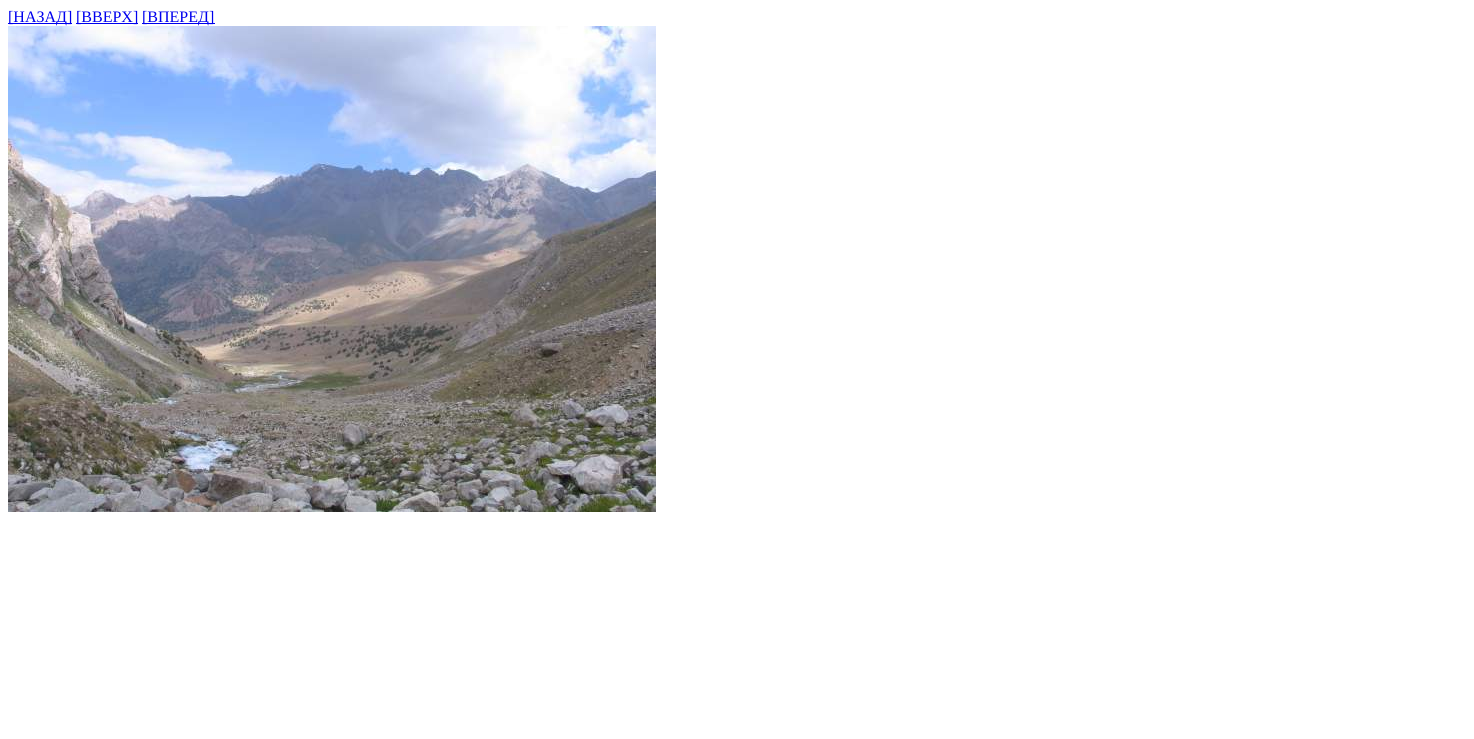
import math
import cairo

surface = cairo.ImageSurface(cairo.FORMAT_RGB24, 1474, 739)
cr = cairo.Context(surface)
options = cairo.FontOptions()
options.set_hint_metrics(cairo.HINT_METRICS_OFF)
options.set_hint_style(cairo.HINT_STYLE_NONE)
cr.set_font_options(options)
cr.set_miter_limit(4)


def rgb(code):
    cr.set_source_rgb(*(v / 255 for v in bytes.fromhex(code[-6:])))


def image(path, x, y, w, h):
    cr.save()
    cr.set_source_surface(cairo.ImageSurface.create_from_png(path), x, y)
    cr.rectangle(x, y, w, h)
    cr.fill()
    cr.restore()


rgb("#ffffff")
cr.paint()
for x, y, w, h, color in [
    (8, 23, 64, 1, "#0000ee"),
    (76, 23, 62, 1, "#0000ee"),
    (142, 23, 73, 1, "#0000ee"),
]:
    rgb(color)
    cr.rectangle(x, y, w, h)
    cr.fill()
image("img/1.png", 8, 26, 648, 486)
cr.select_font_face("Liberation Serif")
cr.set_font_size(16)
for x, y, s in [
    (8, 22, "[НАЗАД]"),
    (76, 22, "[ВВЕРХ]"),
    (142, 22, "[ВПЕРЕД]"),
]:
    cr.move_to(x, y)
    cr.show_text(s)
surface.write_to_png("page.png")
